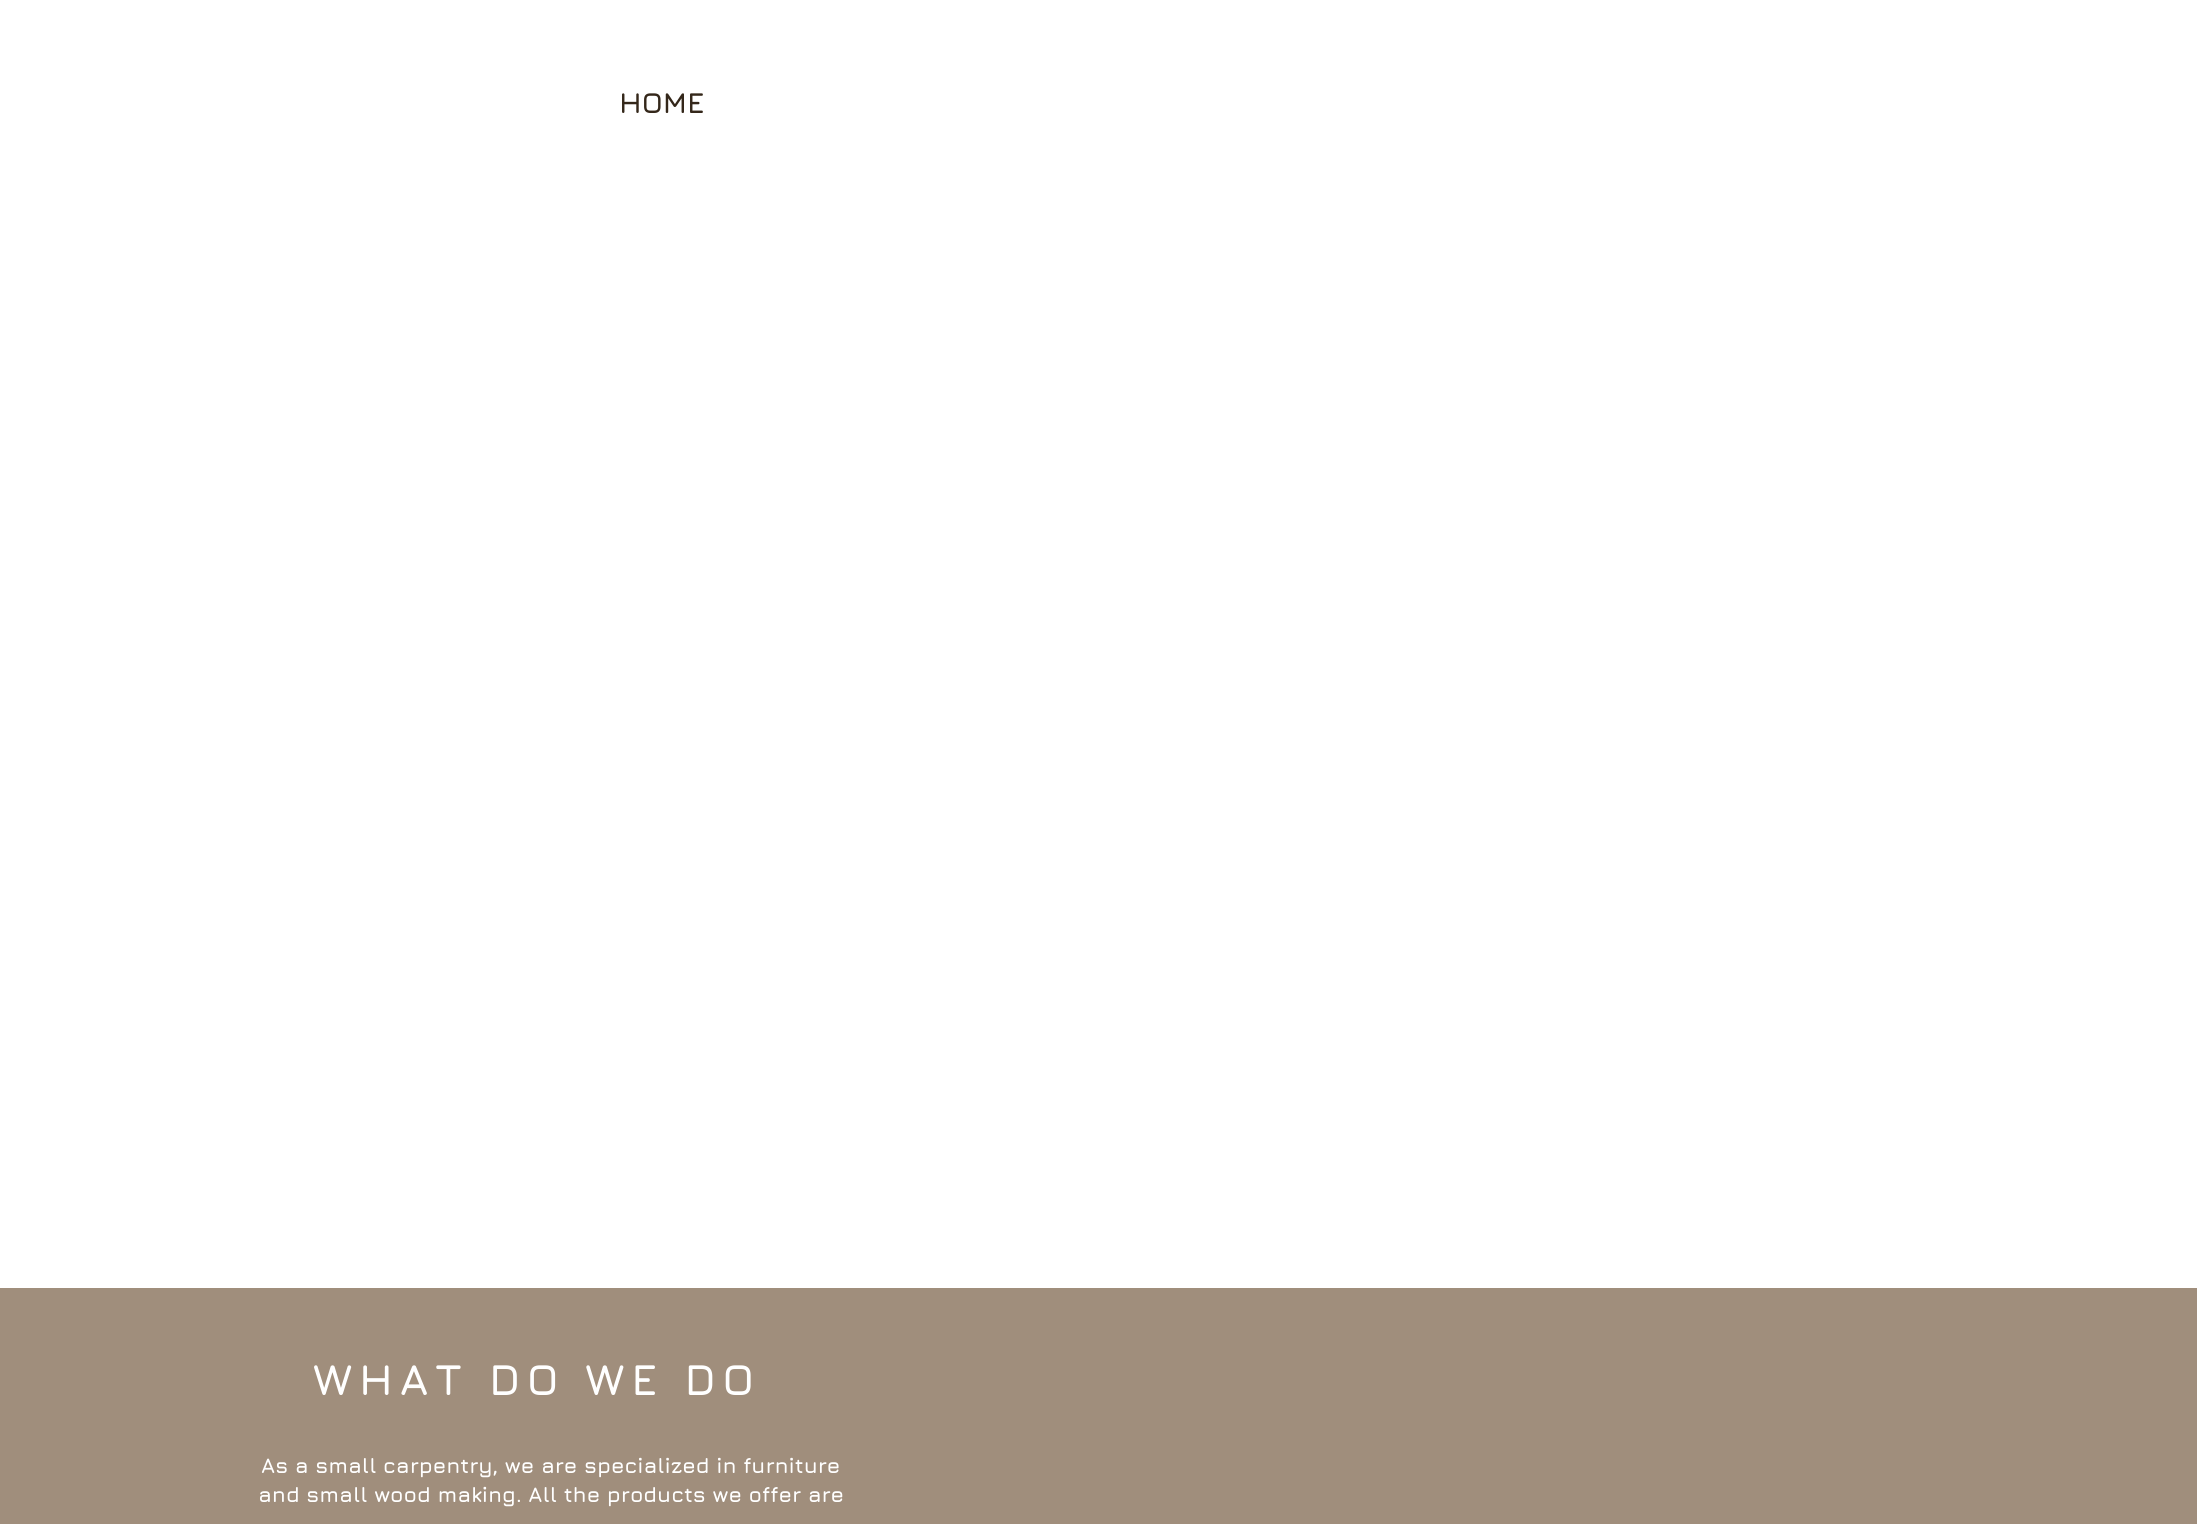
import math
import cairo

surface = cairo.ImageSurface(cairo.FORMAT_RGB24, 2197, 1524)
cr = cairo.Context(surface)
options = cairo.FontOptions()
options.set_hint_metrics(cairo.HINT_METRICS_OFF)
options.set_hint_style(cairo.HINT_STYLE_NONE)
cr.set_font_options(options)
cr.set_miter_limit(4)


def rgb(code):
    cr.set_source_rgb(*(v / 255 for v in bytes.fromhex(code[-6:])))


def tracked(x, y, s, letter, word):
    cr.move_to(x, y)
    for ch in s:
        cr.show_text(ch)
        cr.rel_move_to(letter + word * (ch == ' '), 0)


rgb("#ffffff")
cr.paint()
rgb("#a08e7c")
cr.rectangle(0, 1288, 2197, 236)
cr.fill()
cr.select_font_face("Jura", cairo.FONT_SLANT_NORMAL, cairo.FONT_WEIGHT_BOLD)
cr.set_font_size(29)
rgb("#34271a")
cr.move_to(619, 113)
cr.show_text("HOME")
cr.set_font_size(43.75)
rgb("#ffffff")
tracked(313, 1395, "WHAT DO WE DO", 6.5, 0)
cr.set_font_size(21.25)
cr.move_to(261, 1473)
cr.show_text("As a small carpentry, we are specialized in furniture")
cr.move_to(258, 1502)
cr.show_text("and small wood making. All the products we offer are")
surface.write_to_png("page.png")
